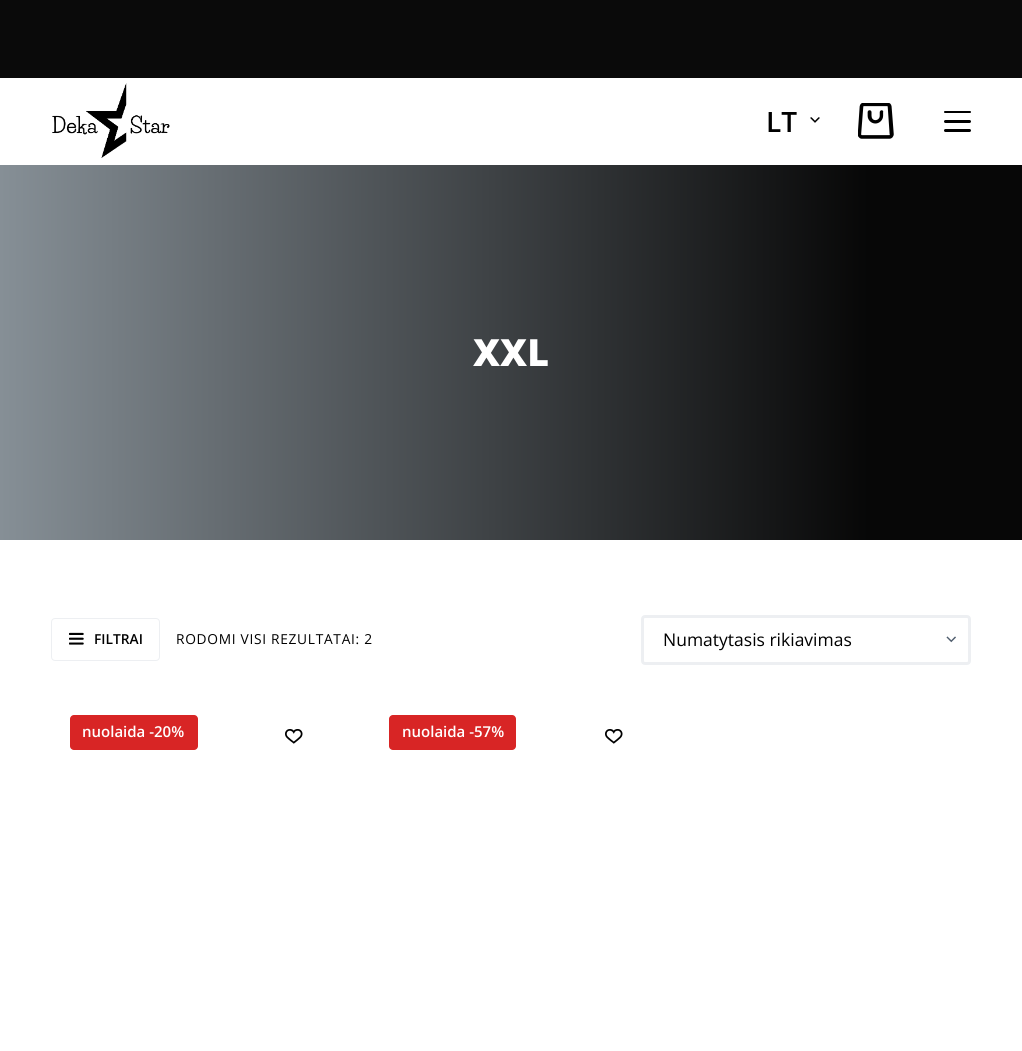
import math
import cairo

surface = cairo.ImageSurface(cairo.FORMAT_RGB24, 1022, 1051)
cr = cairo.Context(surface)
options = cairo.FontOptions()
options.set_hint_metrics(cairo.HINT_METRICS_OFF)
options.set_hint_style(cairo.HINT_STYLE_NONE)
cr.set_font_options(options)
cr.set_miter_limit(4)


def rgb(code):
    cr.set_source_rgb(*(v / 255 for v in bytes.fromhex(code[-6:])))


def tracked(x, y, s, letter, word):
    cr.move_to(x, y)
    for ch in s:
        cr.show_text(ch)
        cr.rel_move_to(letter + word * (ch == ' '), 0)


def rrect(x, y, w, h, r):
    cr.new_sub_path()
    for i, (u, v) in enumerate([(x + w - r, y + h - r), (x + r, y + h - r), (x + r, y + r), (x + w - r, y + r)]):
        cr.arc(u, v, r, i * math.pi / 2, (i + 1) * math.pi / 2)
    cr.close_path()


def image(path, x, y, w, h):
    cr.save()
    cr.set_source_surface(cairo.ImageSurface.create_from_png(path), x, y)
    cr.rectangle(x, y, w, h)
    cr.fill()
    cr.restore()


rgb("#ffffff")
cr.paint()
rgb("#0a0a0a")
cr.rectangle(0, 0, 1022, 78)
cr.fill()
image("img/1.png", 52, 83, 118, 75)
image("img/2.png", 810, 117, 10, 6)
image("img/3.png", 858, 103, 36, 36)
rgb("#000000")
rrect(944, 111, 27, 2, 1)
cr.fill()
rrect(944, 120, 27, 3, 1.5)
cr.fill()
rrect(944, 129, 27, 3, 1.5)
cr.fill()
gradient = cairo.LinearGradient(0, 353, 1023, 353)
gradient.add_color_stop_rgba(0, 0.525, 0.561, 0.588, 1)
gradient.add_color_stop_rgba(0.85, 0.027, 0.027, 0.027, 1)
cr.set_source(gradient)
cr.rectangle(0, 165, 1022, 375)
cr.fill()
rrect(51.5, 618.5, 108, 42, 3.5)
rgb("#edeff2")
cr.set_line_width(1)
cr.stroke()
image("img/4.png", 69, 632, 15, 13)
image("img/5.png", 946, 636, 10, 7)
rrect(642.5, 616.5, 327, 47, 2.5)
cr.set_line_width(3)
cr.stroke()
rgb("#d82525")
rrect(70, 715, 128, 35, 4)
cr.fill()
image("img/6.png", 285, 729, 18, 15)
rrect(389, 715, 127, 35, 4)
cr.fill()
image("img/6.png", 605, 729, 18, 15)
cr.select_font_face("Open Sans SemiBold")
cr.set_font_size(28)
rgb("#000000")
cr.move_to(766, 132)
cr.show_text("LT")
cr.select_font_face("Open Sans ExtraBold")
cr.set_font_size(37.5)
rgb("#ffffff")
cr.move_to(473, 366)
cr.show_text("XXL")
cr.select_font_face("Open Sans SemiBold")
cr.set_font_size(13.75)
rgb("#000000")
cr.move_to(94, 644)
cr.show_text("FILTRAI")
cr.select_font_face("Open Sans")
tracked(176, 644, "RODOMI VISI REZULTATAI: 2", 0.7, 0)
cr.set_font_size(17.5)
cr.move_to(663, 646)
cr.show_text("Numatytasis rikiavimas")
cr.select_font_face("Open Sans SemiBold")
cr.set_font_size(15)
rgb("#ffffff")
cr.move_to(82, 737)
cr.show_text("nuolaida -20%")
cr.move_to(402, 737)
cr.show_text("nuolaida -57%")
surface.write_to_png("page.png")
